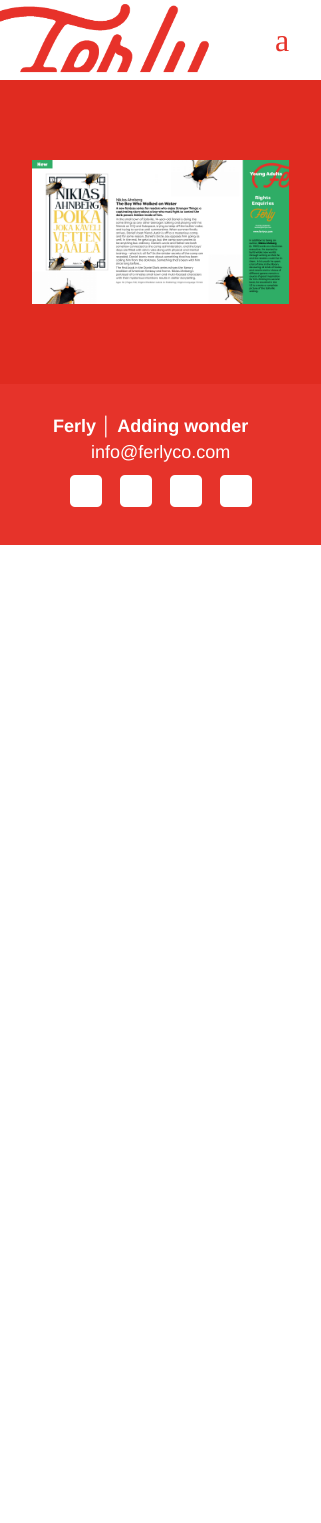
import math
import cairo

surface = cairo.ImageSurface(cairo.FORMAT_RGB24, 321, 1523)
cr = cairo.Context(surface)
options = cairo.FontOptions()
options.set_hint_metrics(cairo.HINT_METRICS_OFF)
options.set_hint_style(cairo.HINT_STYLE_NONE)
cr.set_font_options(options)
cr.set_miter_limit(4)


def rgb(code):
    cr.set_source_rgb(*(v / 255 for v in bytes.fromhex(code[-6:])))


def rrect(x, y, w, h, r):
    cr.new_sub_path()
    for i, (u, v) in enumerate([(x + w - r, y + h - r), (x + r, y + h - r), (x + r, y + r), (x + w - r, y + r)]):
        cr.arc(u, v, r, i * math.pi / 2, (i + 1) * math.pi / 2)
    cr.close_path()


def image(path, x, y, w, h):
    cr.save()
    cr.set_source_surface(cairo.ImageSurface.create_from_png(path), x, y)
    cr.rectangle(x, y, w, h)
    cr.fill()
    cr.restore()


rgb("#ffffff")
cr.paint()
image("img/1.png", 0, 4, 209, 69)
rgb("#e02b20")
cr.rectangle(0, 80, 321, 304)
cr.fill()
image("img/2.png", 32, 160, 257, 144)
rgb("#e6332a")
cr.rectangle(0, 384, 321, 161)
cr.fill()
rgb("#ffffff")
rrect(70, 475, 32, 32, 5)
cr.fill()
rrect(120, 475, 32, 32, 5)
cr.fill()
rrect(170, 475, 32, 32, 5)
cr.fill()
rrect(220, 475, 32, 32, 5)
cr.fill()
cr.select_font_face("Liberation Serif")
cr.set_font_size(32)
rgb("#e6332a")
cr.move_to(275, 51)
cr.show_text("a")
cr.select_font_face("Liberation Sans", cairo.FONT_SLANT_NORMAL, cairo.FONT_WEIGHT_BOLD)
cr.set_font_size(18)
rgb("#ffffff")
cr.move_to(53, 432)
cr.show_text("Ferly │ Adding wonder")
cr.select_font_face("Liberation Sans")
cr.move_to(91, 458)
cr.show_text("info@ferlyco.com")
surface.write_to_png("page.png")
